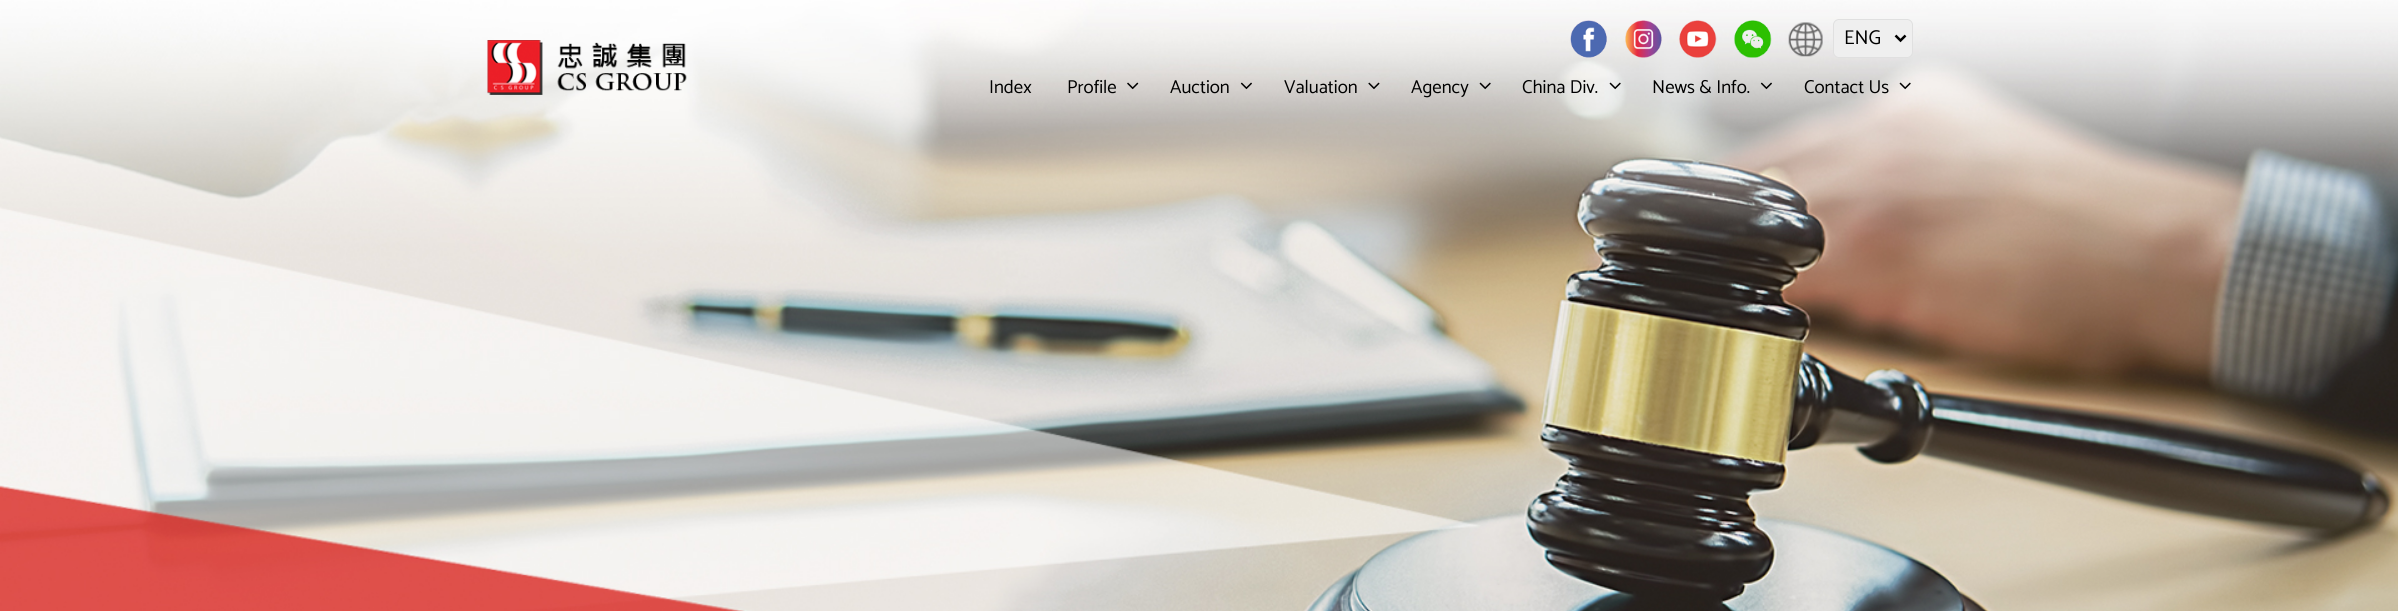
import math
import cairo

surface = cairo.ImageSurface(cairo.FORMAT_RGB24, 2398, 611)
cr = cairo.Context(surface)
options = cairo.FontOptions()
options.set_hint_metrics(cairo.HINT_METRICS_OFF)
options.set_hint_style(cairo.HINT_STYLE_NONE)
cr.set_font_options(options)
cr.set_miter_limit(4)


def rgb(code):
    cr.set_source_rgb(*(v / 255 for v in bytes.fromhex(code[-6:])))


def rrect(x, y, w, h, r):
    cr.new_sub_path()
    for i, (u, v) in enumerate([(x + w - r, y + h - r), (x + r, y + h - r), (x + r, y + r), (x + w - r, y + r)]):
        cr.arc(u, v, r, i * math.pi / 2, (i + 1) * math.pi / 2)
    cr.close_path()


def image(path, x, y, w, h):
    cr.save()
    cr.set_source_surface(cairo.ImageSurface.create_from_png(path), x, y)
    cr.rectangle(x, y, w, h)
    cr.fill()
    cr.restore()


rgb("#ffffff")
cr.paint()
image("img/1.png", 0, 0, 2398, 611)
image("img/2.png", 487, 40, 200, 55)
image("img/3.png", 1570, 20, 37, 38)
image("img/4.png", 1625, 20, 37, 38)
image("img/5.png", 1679, 20, 38, 38)
image("img/6.png", 1734, 20, 38, 38)
image("img/7.png", 1788, 22, 35, 35)
rgb("#efefef")
rrect(1833.5, 19.5, 79, 38, 5.5)
cr.fill_preserve()
rgb("#e0e0e0")
cr.set_line_width(1)
cr.stroke()
cr.new_path()
cr.move_to(1895.5, 35.5)
cr.line_to(1900.5, 40.5)
cr.line_to(1905.5, 35.5)
rgb("#000000")
cr.set_line_width(2.5)
cr.stroke()
image("img/8.png", 1127, 82, 12, 8)
image("img/9.png", 1240, 82, 12, 8)
image("img/10.png", 1368, 82, 12, 8)
image("img/11.png", 1479, 82, 12, 8)
image("img/12.png", 1609, 82, 12, 8)
image("img/13.png", 1760, 82, 12, 8)
image("img/14.png", 1899, 82, 12, 8)
cr.select_font_face("Catamaran")
cr.set_font_size(20)
cr.move_to(1844, 44)
cr.show_text("ENG")
cr.set_font_size(18.75)
for x, y, s in [
    (989, 93, "Index"),
    (1067, 93, "Profile"),
    (1170, 93, "Auction"),
    (1284, 93, "Valuation"),
    (1411, 93, "Agency"),
    (1522, 93, "China Div."),
    (1652, 93, "News & Info."),
    (1804, 93, "Contact Us"),
]:
    cr.move_to(x, y)
    cr.show_text(s)
surface.write_to_png("page.png")
